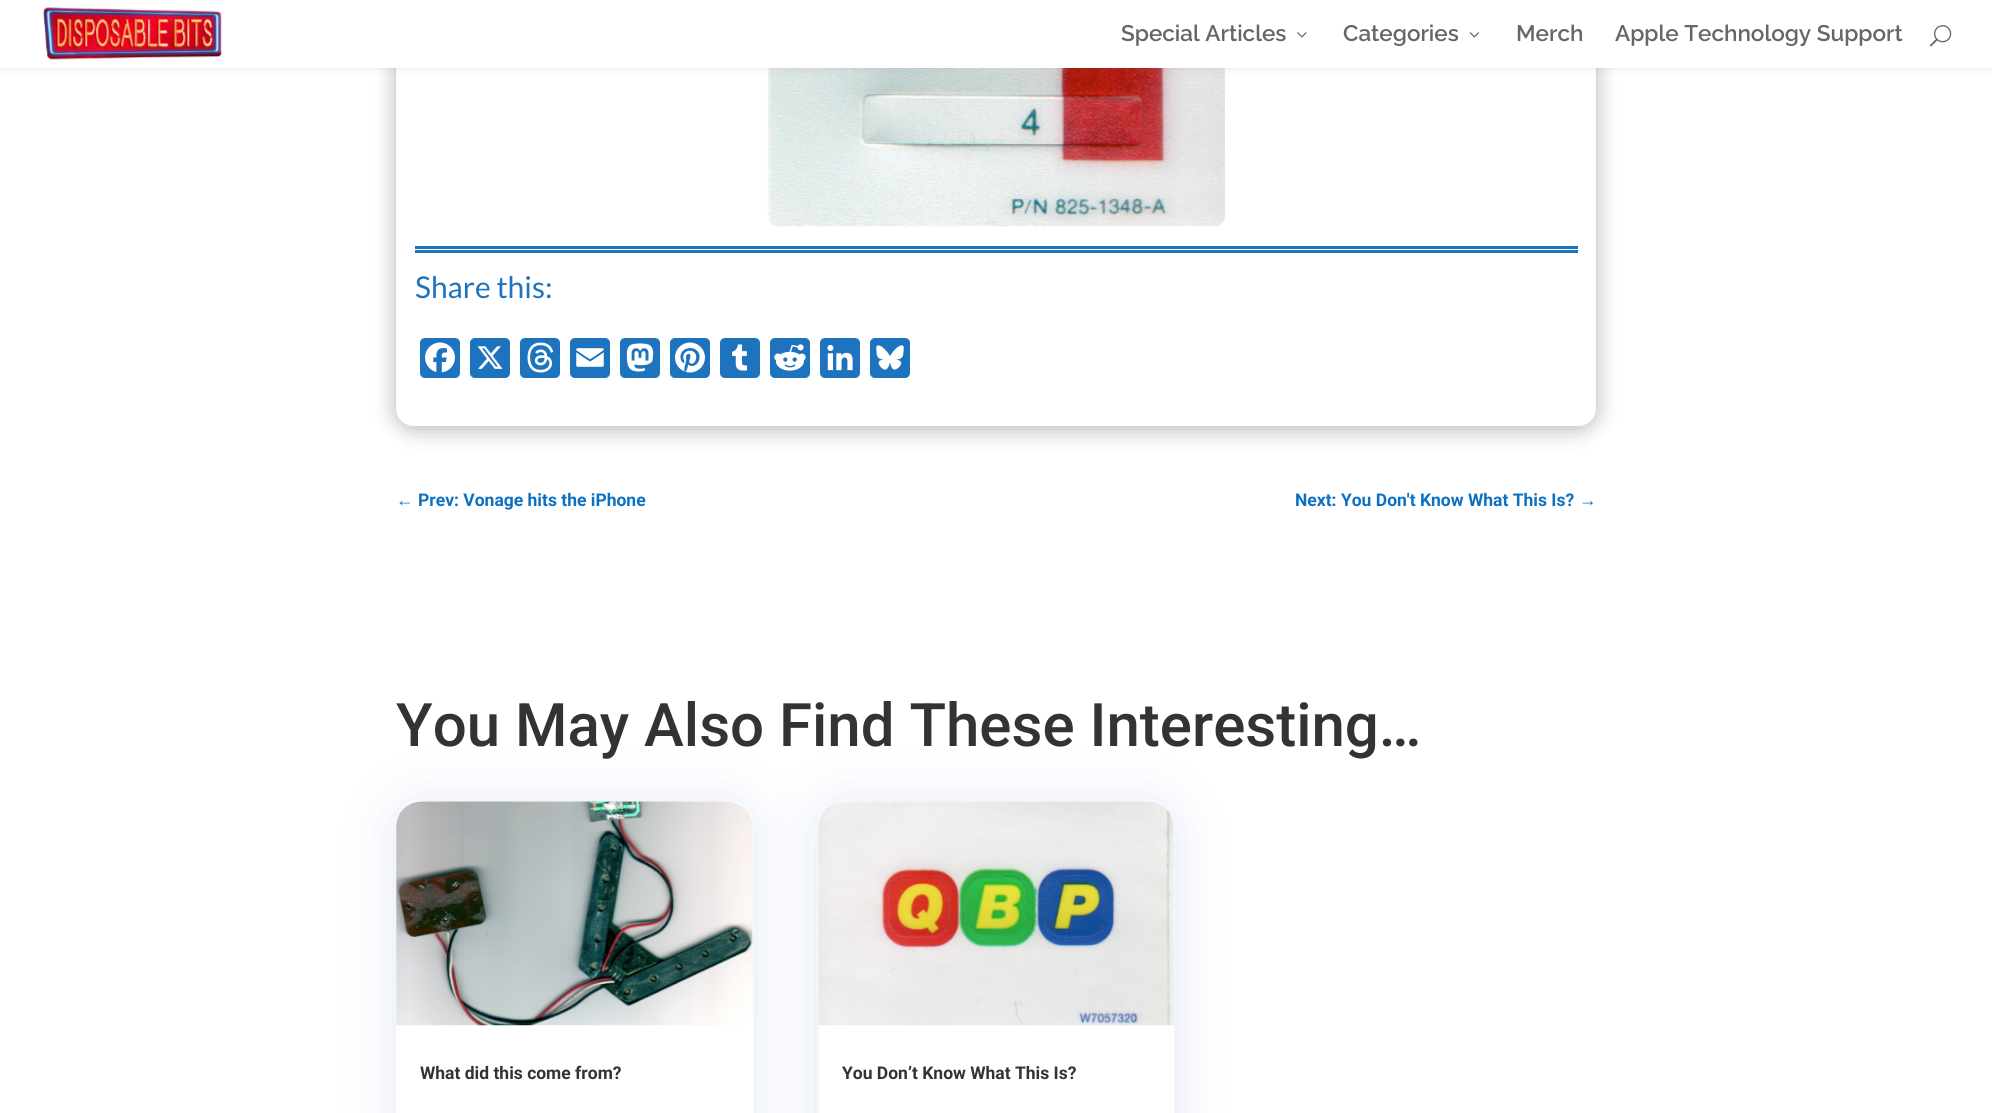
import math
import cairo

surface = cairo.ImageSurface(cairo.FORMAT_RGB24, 1992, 1113)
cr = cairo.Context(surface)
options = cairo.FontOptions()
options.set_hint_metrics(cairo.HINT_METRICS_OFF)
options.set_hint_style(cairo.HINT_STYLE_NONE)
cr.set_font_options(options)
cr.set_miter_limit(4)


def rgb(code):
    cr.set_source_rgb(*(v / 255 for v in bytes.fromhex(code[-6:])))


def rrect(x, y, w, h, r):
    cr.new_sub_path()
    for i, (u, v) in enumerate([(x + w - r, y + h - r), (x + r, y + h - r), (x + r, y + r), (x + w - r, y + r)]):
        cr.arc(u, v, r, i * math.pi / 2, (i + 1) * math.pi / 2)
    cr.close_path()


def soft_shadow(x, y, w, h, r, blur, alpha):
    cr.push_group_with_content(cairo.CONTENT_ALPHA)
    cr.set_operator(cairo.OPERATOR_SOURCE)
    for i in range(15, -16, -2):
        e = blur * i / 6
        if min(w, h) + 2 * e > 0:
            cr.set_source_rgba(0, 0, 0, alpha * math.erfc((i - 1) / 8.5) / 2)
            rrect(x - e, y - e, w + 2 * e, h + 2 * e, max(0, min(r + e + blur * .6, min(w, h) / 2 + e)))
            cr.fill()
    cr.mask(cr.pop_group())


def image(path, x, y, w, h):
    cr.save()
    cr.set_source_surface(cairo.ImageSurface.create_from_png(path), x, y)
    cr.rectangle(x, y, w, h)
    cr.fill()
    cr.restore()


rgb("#ffffff")
cr.paint()
cr.save()
cr.set_fill_rule(cairo.FILL_RULE_EVEN_ODD)
cr.new_path()
cr.move_to(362, 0)
cr.line_to(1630, 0)
cr.line_to(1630, 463)
cr.line_to(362, 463)
cr.close_path()
cr.move_to(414, -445)
cr.line_to(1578, -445)
cr.curve_to(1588, -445, 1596, -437, 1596, -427)
cr.line_to(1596, 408)
cr.curve_to(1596, 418, 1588, 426, 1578, 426)
cr.line_to(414, 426)
cr.curve_to(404, 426, 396, 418, 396, 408)
cr.line_to(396, -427)
cr.curve_to(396, -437, 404, -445, 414, -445)
cr.close_path()
cr.clip()
rgb("#000000")
soft_shadow(396, -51, 1200, 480, 18, 11, 0.3)
cr.restore()
image("img/5.png", 767, 68, 458, 159)
rgb("#000000")
soft_shadow(0, 0, 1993, 68, 0, 4.5, 0.1)
rgb("#ffffff")
cr.rectangle(0, 0, 1992, 68)
cr.fill()
image("img/1.png", 43, 7, 179, 53)
image("img/2.png", 1297, 32, 10, 6)
image("img/3.png", 1469, 32, 10, 6)
image("img/4.png", 1930, 25, 22, 22)
rgb("#1e73be")
cr.rectangle(415, 246, 1163, 3)
cr.fill()
cr.rectangle(415, 250, 1163, 3)
cr.fill()
rrect(420, 338, 40, 40, 5)
cr.fill()
image("img/6.png", 425, 342, 30, 31)
rrect(470, 338, 40, 40, 5)
cr.fill()
image("img/7.png", 477, 346, 26, 23)
rrect(520, 338, 40, 40, 5)
cr.fill()
image("img/8.png", 527, 342, 27, 31)
rrect(570, 338, 40, 40, 5)
cr.fill()
image("img/9.png", 576, 348, 28, 19)
rrect(620, 338, 40, 40, 5)
cr.fill()
image("img/10.png", 626, 343, 28, 29)
rrect(670, 338, 40, 40, 5)
cr.fill()
image("img/11.png", 675, 342, 30, 31)
rrect(720, 338, 40, 40, 5)
cr.fill()
image("img/12.png", 732, 344, 16, 27)
rrect(770, 338, 40, 40, 5)
cr.fill()
image("img/13.png", 774, 344, 32, 27)
rrect(820, 338, 40, 40, 5)
cr.fill()
image("img/14.png", 827, 344, 26, 27)
rrect(870, 338, 40, 40, 5)
cr.fill()
image("img/15.png", 876, 345, 28, 25)
rgb("#6e82d0")
soft_shadow(396, 804, 357, 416, 25, 31, 0.18)
rgb("#ffffff")
rrect(396, 801, 357, 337, 25)
cr.fill()
rgb("#6e82d0")
soft_shadow(819, 804, 355, 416, 25, 31, 0.18)
image("img/16.png", 396, 801, 357, 225)
rgb("#ffffff")
rrect(819, 801, 355, 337, 25)
cr.fill()
image("img/17.png", 818, 801, 356, 225)
cr.select_font_face("Raleway SemiBold")
cr.set_font_size(22.5)
rgb("#666666")
for x, y, s in [
    (1121, 41, "Special Articles"),
    (1343, 41, "Categories"),
    (1516, 41, "Merch"),
    (1615, 41, "Apple Technology Support"),
]:
    cr.move_to(x, y)
    cr.show_text(s)
cr.select_font_face("Lato")
cr.set_font_size(30)
rgb("#1e73be")
cr.move_to(415, 298)
cr.show_text("Share this:")
cr.select_font_face("Liberation Sans", cairo.FONT_SLANT_NORMAL, cairo.FONT_WEIGHT_BOLD)
cr.set_font_size(17.5)
rgb("#0c71c3")
cr.move_to(396, 506)
cr.show_text("←")
cr.select_font_face("Roboto", cairo.FONT_SLANT_NORMAL, cairo.FONT_WEIGHT_BOLD)
cr.move_to(418, 506)
cr.show_text("Prev: Vonage hits the iPhone")
cr.move_to(1295, 506)
cr.show_text("Next: You Don't Know What This Is?")
cr.select_font_face("Liberation Sans", cairo.FONT_SLANT_NORMAL, cairo.FONT_WEIGHT_BOLD)
cr.move_to(1579, 506)
cr.show_text("→")
cr.select_font_face("Roboto Medium")
cr.set_font_size(60)
rgb("#333333")
cr.move_to(396, 746)
cr.show_text("You May Also Find These Interesting…")
cr.select_font_face("Roboto", cairo.FONT_SLANT_NORMAL, cairo.FONT_WEIGHT_BOLD)
cr.set_font_size(17.5)
cr.move_to(420, 1079)
cr.show_text("What did this come from?")
cr.move_to(842, 1079)
cr.show_text("You Don’t Know What This Is?")
surface.write_to_png("page.png")
